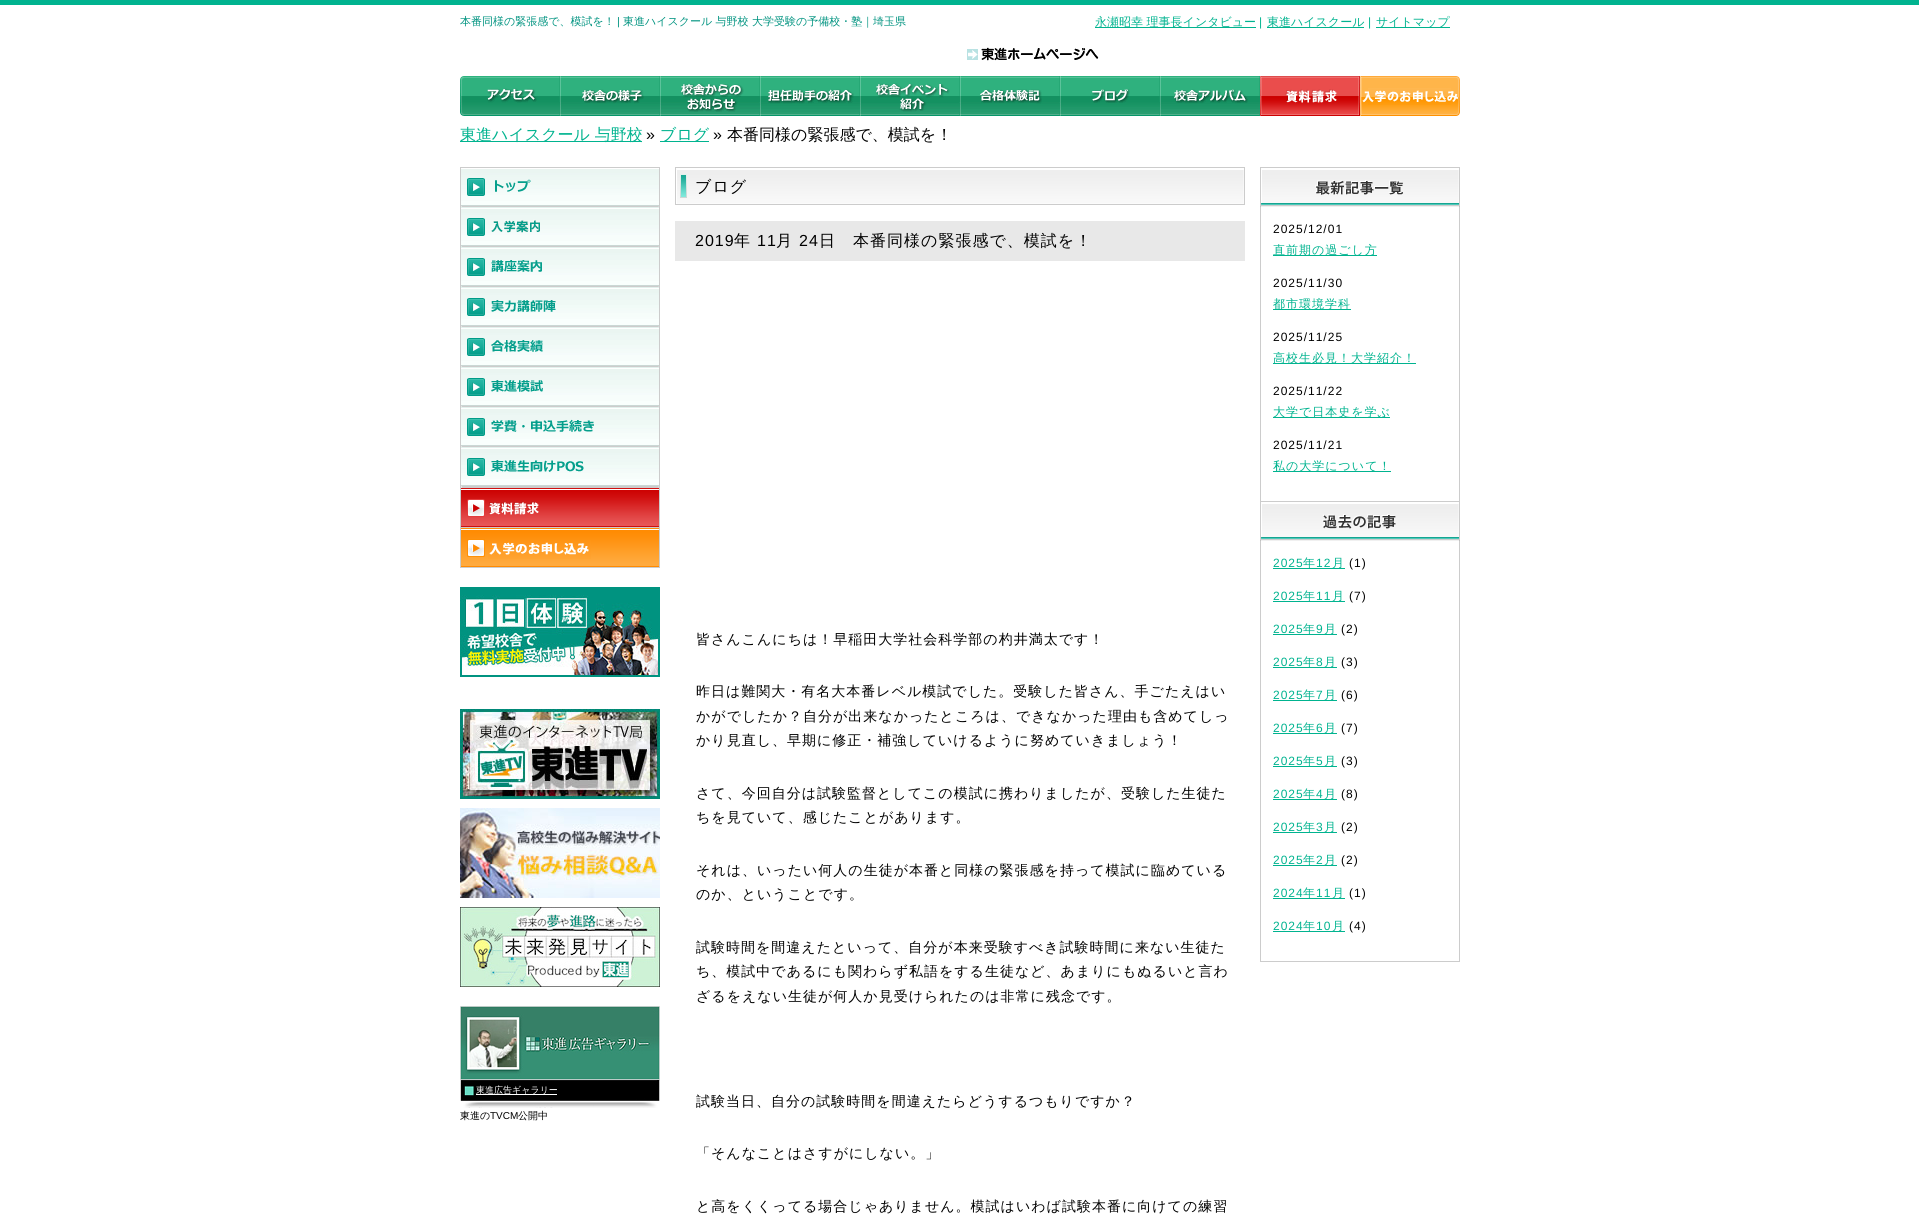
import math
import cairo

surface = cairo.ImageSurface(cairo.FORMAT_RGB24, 1919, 1220)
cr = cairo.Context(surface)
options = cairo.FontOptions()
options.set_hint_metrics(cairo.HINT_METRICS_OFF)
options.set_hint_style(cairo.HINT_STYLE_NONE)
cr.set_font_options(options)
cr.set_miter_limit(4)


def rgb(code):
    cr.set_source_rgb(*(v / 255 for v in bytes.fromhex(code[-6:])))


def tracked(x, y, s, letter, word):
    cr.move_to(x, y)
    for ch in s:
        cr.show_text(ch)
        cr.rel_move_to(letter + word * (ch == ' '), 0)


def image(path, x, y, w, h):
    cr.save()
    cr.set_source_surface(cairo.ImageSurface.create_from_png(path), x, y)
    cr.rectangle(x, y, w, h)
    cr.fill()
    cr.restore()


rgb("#ffffff")
cr.paint()
for x, y, w, h, color in [
    (0, 0, 1919, 5, "#00b38f"),
    (1095, 27, 161, 1, "#00b38f"),
    (1267, 27, 97, 1, "#00b38f"),
    (1376, 27, 74, 1, "#00b38f"),
]:
    rgb(color)
    cr.rectangle(x, y, w, h)
    cr.fill()
image("img/1.png", 967, 47, 132, 14)
image("img/2.png", 460, 76, 100, 40)
image("img/3.png", 560, 76, 100, 40)
image("img/4.png", 660, 76, 100, 40)
image("img/5.png", 760, 76, 100, 40)
image("img/6.png", 860, 76, 100, 40)
image("img/7.png", 960, 76, 100, 40)
image("img/8.png", 1060, 76, 100, 40)
image("img/9.png", 1160, 76, 100, 40)
image("img/10.png", 1260, 76, 100, 40)
image("img/11.png", 1360, 76, 100, 40)
cr.rectangle(460, 141, 182, 1)
cr.fill()
cr.rectangle(660, 141, 49, 1)
cr.fill()
image("img/12.png", 460, 167, 200, 40)
image("img/13.png", 460, 207, 200, 40)
image("img/14.png", 460, 247, 200, 40)
image("img/15.png", 460, 287, 200, 40)
image("img/16.png", 460, 327, 200, 40)
image("img/17.png", 460, 367, 200, 40)
image("img/18.png", 460, 407, 200, 40)
image("img/19.png", 460, 447, 200, 40)
image("img/20.png", 460, 487, 200, 40)
image("img/21.png", 460, 527, 200, 41)
image("img/22.png", 460, 587, 200, 90)
image("img/23.png", 460, 709, 200, 90)
image("img/24.png", 460, 808, 200, 90)
image("img/25.png", 460, 907, 200, 80)
image("img/26.png", 460, 1006, 200, 74)
image("img/27.png", 460, 1080, 200, 28)
rgb("#ffffff")
cr.rectangle(476, 1094, 81, 1)
cr.fill()
image("img/28.png", 675, 167, 570, 38)
rgb("#e8e8e8")
cr.rectangle(675, 221, 570, 40)
cr.fill()
image("img/29.png", 1260, 167, 200, 40)
for x, y, w, h, color in [
    (1459, 207, 1, 294, "#cccccc"),
    (1260, 207, 1, 294, "#cccccc"),
    (1273, 255, 104, 1, "#00b38f"),
    (1273, 309, 78, 1, "#00b38f"),
    (1273, 363, 143, 1, "#00b38f"),
    (1273, 417, 117, 1, "#00b38f"),
    (1273, 471, 118, 1, "#00b38f"),
]:
    rgb(color)
    cr.rectangle(x, y, w, h)
    cr.fill()
image("img/30.png", 1260, 501, 200, 40)
for x, y, w, h, color in [
    (1459, 541, 1, 421, "#cccccc"),
    (1260, 961, 200, 1, "#cccccc"),
    (1260, 541, 1, 421, "#cccccc"),
    (1273, 568, 72, 1, "#00b38f"),
    (1273, 601, 72, 1, "#00b38f"),
    (1273, 634, 64, 1, "#00b38f"),
    (1273, 667, 64, 1, "#00b38f"),
    (1273, 700, 64, 1, "#00b38f"),
    (1273, 733, 64, 1, "#00b38f"),
    (1273, 766, 64, 1, "#00b38f"),
    (1273, 799, 64, 1, "#00b38f"),
    (1273, 832, 64, 1, "#00b38f"),
    (1273, 865, 64, 1, "#00b38f"),
    (1273, 898, 72, 1, "#00b38f"),
    (1273, 931, 72, 1, "#00b38f"),
]:
    rgb(color)
    cr.rectangle(x, y, w, h)
    cr.fill()
cr.select_font_face("WenQuanYi Zen Hei Medium")
cr.set_font_size(11)
rgb("#009380")
cr.move_to(460, 25)
cr.show_text("本番同様の緊張感で、模試を！")
cr.select_font_face("Liberation Sans")
cr.move_to(617, 25)
cr.show_text("|")
cr.select_font_face("WenQuanYi Zen Hei Medium")
cr.move_to(623, 25)
cr.show_text("東進ハイスクール 与野校 大学受験の予備校・塾｜埼玉県")
cr.set_font_size(12)
rgb("#00b38f")
cr.move_to(1095, 26)
cr.show_text("永瀬昭幸 理事長インタビュー")
cr.select_font_face("Liberation Sans")
cr.move_to(1259, 26)
cr.show_text("|")
cr.select_font_face("WenQuanYi Zen Hei Medium")
cr.move_to(1267, 26)
cr.show_text("東進ハイスクール")
cr.select_font_face("Liberation Sans")
cr.move_to(1368, 26)
cr.show_text("|")
cr.select_font_face("WenQuanYi Zen Hei Medium")
cr.move_to(1376, 26)
cr.show_text("サイトマップ")
cr.set_font_size(16)
cr.move_to(460, 140)
cr.show_text("東進ハイスクール 与野校")
cr.select_font_face("Liberation Sans")
rgb("#000000")
cr.move_to(646, 140)
cr.show_text("»")
cr.select_font_face("WenQuanYi Zen Hei Medium")
rgb("#00b38f")
cr.move_to(660, 140)
cr.show_text("ブログ")
cr.select_font_face("Liberation Sans")
rgb("#000000")
cr.move_to(713, 140)
cr.show_text("»")
cr.select_font_face("WenQuanYi Zen Hei Medium")
cr.move_to(727, 140)
cr.show_text("本番同様の緊張感で、模試を！")
cr.set_font_size(9)
rgb("#ffffff")
cr.move_to(476, 1093)
cr.show_text("東進広告ギャラリー")
cr.set_font_size(10)
rgb("#000000")
cr.move_to(460, 1119)
cr.show_text("東進の")
cr.select_font_face("Liberation Sans")
cr.move_to(490, 1119)
cr.show_text("TVCM")
cr.select_font_face("WenQuanYi Zen Hei Medium")
cr.move_to(518, 1119)
cr.show_text("公開中")
cr.set_font_size(16)
tracked(695, 192, "ブログ", 1, 0)
cr.select_font_face("Liberation Sans")
tracked(695, 246, "2019", 1, 0)
cr.select_font_face("WenQuanYi Zen Hei Medium")
tracked(734, 246, "年", 1, 0)
cr.select_font_face("Liberation Sans")
tracked(757, 246, "11", 1, 0)
cr.select_font_face("WenQuanYi Zen Hei Medium")
tracked(776, 246, "月", 1, 0)
cr.select_font_face("Liberation Sans")
tracked(799, 246, "24", 1, 0)
cr.select_font_face("WenQuanYi Zen Hei Medium")
tracked(819, 246, "日　本番同様の緊張感で、模試を！", 1, 0)
cr.set_font_size(14)
for x, y, s in [
    (696, 644, "皆さんこんにちは！早稲田大学社会科学部の杓井満太です！"),
    (696, 696, "昨日は難関大・有名大本番レベル模試でした。受験した皆さん、手ごたえはい"),
    (696, 721, "かがでしたか？自分が出来なかったところは、できなかった理由も含めてしっ"),
    (696, 745, "かり見直し、早期に修正・補強していけるように努めていきましょう！"),
    (696, 798, "さて、今回自分は試験監督としてこの模試に携わりましたが、受験した生徒た"),
    (696, 822, "ちを見ていて、感じたことがあります。"),
    (696, 875, "それは、いったい何人の生徒が本番と同様の緊張感を持って模試に臨めている"),
    (696, 899, "のか、ということです。"),
    (696, 952, "試験時間を間違えたといって、自分が本来受験すべき試験時間に来ない生徒た"),
    (696, 976, "ち、模試中であるにも関わらず私語をする生徒など、あまりにもぬるいと言わ"),
    (696, 1001, "ざるをえない生徒が何人か見受けられたのは非常に残念です。"),
    (696, 1106, "試験当日、自分の試験時間を間違えたらどうするつもりですか？"),
    (696, 1158, "「そんなことはさすがにしない。」"),
    (696, 1211, "と高をくくってる場合じゃありません。模試はいわば試験本番に向けての練習"),
]:
    tracked(x, y, s, 1, 0)
cr.select_font_face("Liberation Sans")
cr.set_font_size(12)
tracked(1273, 233, "2025/12/01", 1, 0)
cr.select_font_face("WenQuanYi Zen Hei Medium")
rgb("#00b38f")
tracked(1273, 254, "直前期の過ごし方", 1, 0)
cr.select_font_face("Liberation Sans")
rgb("#000000")
tracked(1273, 287, "2025/11/30", 1, 0)
cr.select_font_face("WenQuanYi Zen Hei Medium")
rgb("#00b38f")
tracked(1273, 308, "都市環境学科", 1, 0)
cr.select_font_face("Liberation Sans")
rgb("#000000")
tracked(1273, 341, "2025/11/25", 1, 0)
cr.select_font_face("WenQuanYi Zen Hei Medium")
rgb("#00b38f")
tracked(1273, 362, "高校生必見！大学紹介！", 1, 0)
cr.select_font_face("Liberation Sans")
rgb("#000000")
tracked(1273, 395, "2025/11/22", 1, 0)
cr.select_font_face("WenQuanYi Zen Hei Medium")
rgb("#00b38f")
tracked(1273, 416, "大学で日本史を学ぶ", 1, 0)
cr.select_font_face("Liberation Sans")
rgb("#000000")
tracked(1273, 449, "2025/11/21", 1, 0)
cr.select_font_face("WenQuanYi Zen Hei Medium")
rgb("#00b38f")
tracked(1273, 470, "私の大学について！", 1, 0)
cr.select_font_face("Liberation Sans")
tracked(1273, 567, "2025", 1, 0)
cr.select_font_face("WenQuanYi Zen Hei Medium")
tracked(1303, 567, "年", 1, 0)
cr.select_font_face("Liberation Sans")
tracked(1316, 567, "12", 1, 0)
cr.select_font_face("WenQuanYi Zen Hei Medium")
tracked(1332, 567, "月", 1, 0)
cr.select_font_face("Liberation Sans")
rgb("#000000")
tracked(1349, 567, "(1)", 1, 0)
rgb("#00b38f")
tracked(1273, 600, "2025", 1, 0)
cr.select_font_face("WenQuanYi Zen Hei Medium")
tracked(1303, 600, "年", 1, 0)
cr.select_font_face("Liberation Sans")
tracked(1316, 600, "11", 1, 0)
cr.select_font_face("WenQuanYi Zen Hei Medium")
tracked(1332, 600, "月", 1, 0)
cr.select_font_face("Liberation Sans")
rgb("#000000")
tracked(1349, 600, "(7)", 1, 0)
rgb("#00b38f")
tracked(1273, 633, "2025", 1, 0)
cr.select_font_face("WenQuanYi Zen Hei Medium")
tracked(1303, 633, "年", 1, 0)
cr.select_font_face("Liberation Sans")
tracked(1316, 633, "9", 1, 0)
cr.select_font_face("WenQuanYi Zen Hei Medium")
tracked(1324, 633, "月", 1, 0)
cr.select_font_face("Liberation Sans")
rgb("#000000")
tracked(1341, 633, "(2)", 1, 0)
rgb("#00b38f")
tracked(1273, 666, "2025", 1, 0)
cr.select_font_face("WenQuanYi Zen Hei Medium")
tracked(1303, 666, "年", 1, 0)
cr.select_font_face("Liberation Sans")
tracked(1316, 666, "8", 1, 0)
cr.select_font_face("WenQuanYi Zen Hei Medium")
tracked(1324, 666, "月", 1, 0)
cr.select_font_face("Liberation Sans")
rgb("#000000")
tracked(1341, 666, "(3)", 1, 0)
rgb("#00b38f")
tracked(1273, 699, "2025", 1, 0)
cr.select_font_face("WenQuanYi Zen Hei Medium")
tracked(1303, 699, "年", 1, 0)
cr.select_font_face("Liberation Sans")
tracked(1316, 699, "7", 1, 0)
cr.select_font_face("WenQuanYi Zen Hei Medium")
tracked(1324, 699, "月", 1, 0)
cr.select_font_face("Liberation Sans")
rgb("#000000")
tracked(1341, 699, "(6)", 1, 0)
rgb("#00b38f")
tracked(1273, 732, "2025", 1, 0)
cr.select_font_face("WenQuanYi Zen Hei Medium")
tracked(1303, 732, "年", 1, 0)
cr.select_font_face("Liberation Sans")
tracked(1316, 732, "6", 1, 0)
cr.select_font_face("WenQuanYi Zen Hei Medium")
tracked(1324, 732, "月", 1, 0)
cr.select_font_face("Liberation Sans")
rgb("#000000")
tracked(1341, 732, "(7)", 1, 0)
rgb("#00b38f")
tracked(1273, 765, "2025", 1, 0)
cr.select_font_face("WenQuanYi Zen Hei Medium")
tracked(1303, 765, "年", 1, 0)
cr.select_font_face("Liberation Sans")
tracked(1316, 765, "5", 1, 0)
cr.select_font_face("WenQuanYi Zen Hei Medium")
tracked(1324, 765, "月", 1, 0)
cr.select_font_face("Liberation Sans")
rgb("#000000")
tracked(1341, 765, "(3)", 1, 0)
rgb("#00b38f")
tracked(1273, 798, "2025", 1, 0)
cr.select_font_face("WenQuanYi Zen Hei Medium")
tracked(1303, 798, "年", 1, 0)
cr.select_font_face("Liberation Sans")
tracked(1316, 798, "4", 1, 0)
cr.select_font_face("WenQuanYi Zen Hei Medium")
tracked(1324, 798, "月", 1, 0)
cr.select_font_face("Liberation Sans")
rgb("#000000")
tracked(1341, 798, "(8)", 1, 0)
rgb("#00b38f")
tracked(1273, 831, "2025", 1, 0)
cr.select_font_face("WenQuanYi Zen Hei Medium")
tracked(1303, 831, "年", 1, 0)
cr.select_font_face("Liberation Sans")
tracked(1316, 831, "3", 1, 0)
cr.select_font_face("WenQuanYi Zen Hei Medium")
tracked(1324, 831, "月", 1, 0)
cr.select_font_face("Liberation Sans")
rgb("#000000")
tracked(1341, 831, "(2)", 1, 0)
rgb("#00b38f")
tracked(1273, 864, "2025", 1, 0)
cr.select_font_face("WenQuanYi Zen Hei Medium")
tracked(1303, 864, "年", 1, 0)
cr.select_font_face("Liberation Sans")
tracked(1316, 864, "2", 1, 0)
cr.select_font_face("WenQuanYi Zen Hei Medium")
tracked(1324, 864, "月", 1, 0)
cr.select_font_face("Liberation Sans")
rgb("#000000")
tracked(1341, 864, "(2)", 1, 0)
rgb("#00b38f")
tracked(1273, 897, "2024", 1, 0)
cr.select_font_face("WenQuanYi Zen Hei Medium")
tracked(1303, 897, "年", 1, 0)
cr.select_font_face("Liberation Sans")
tracked(1316, 897, "11", 1, 0)
cr.select_font_face("WenQuanYi Zen Hei Medium")
tracked(1332, 897, "月", 1, 0)
cr.select_font_face("Liberation Sans")
rgb("#000000")
tracked(1349, 897, "(1)", 1, 0)
rgb("#00b38f")
tracked(1273, 930, "2024", 1, 0)
cr.select_font_face("WenQuanYi Zen Hei Medium")
tracked(1303, 930, "年", 1, 0)
cr.select_font_face("Liberation Sans")
tracked(1316, 930, "10", 1, 0)
cr.select_font_face("WenQuanYi Zen Hei Medium")
tracked(1332, 930, "月", 1, 0)
cr.select_font_face("Liberation Sans")
rgb("#000000")
tracked(1349, 930, "(4)", 1, 0)
surface.write_to_png("page.png")
